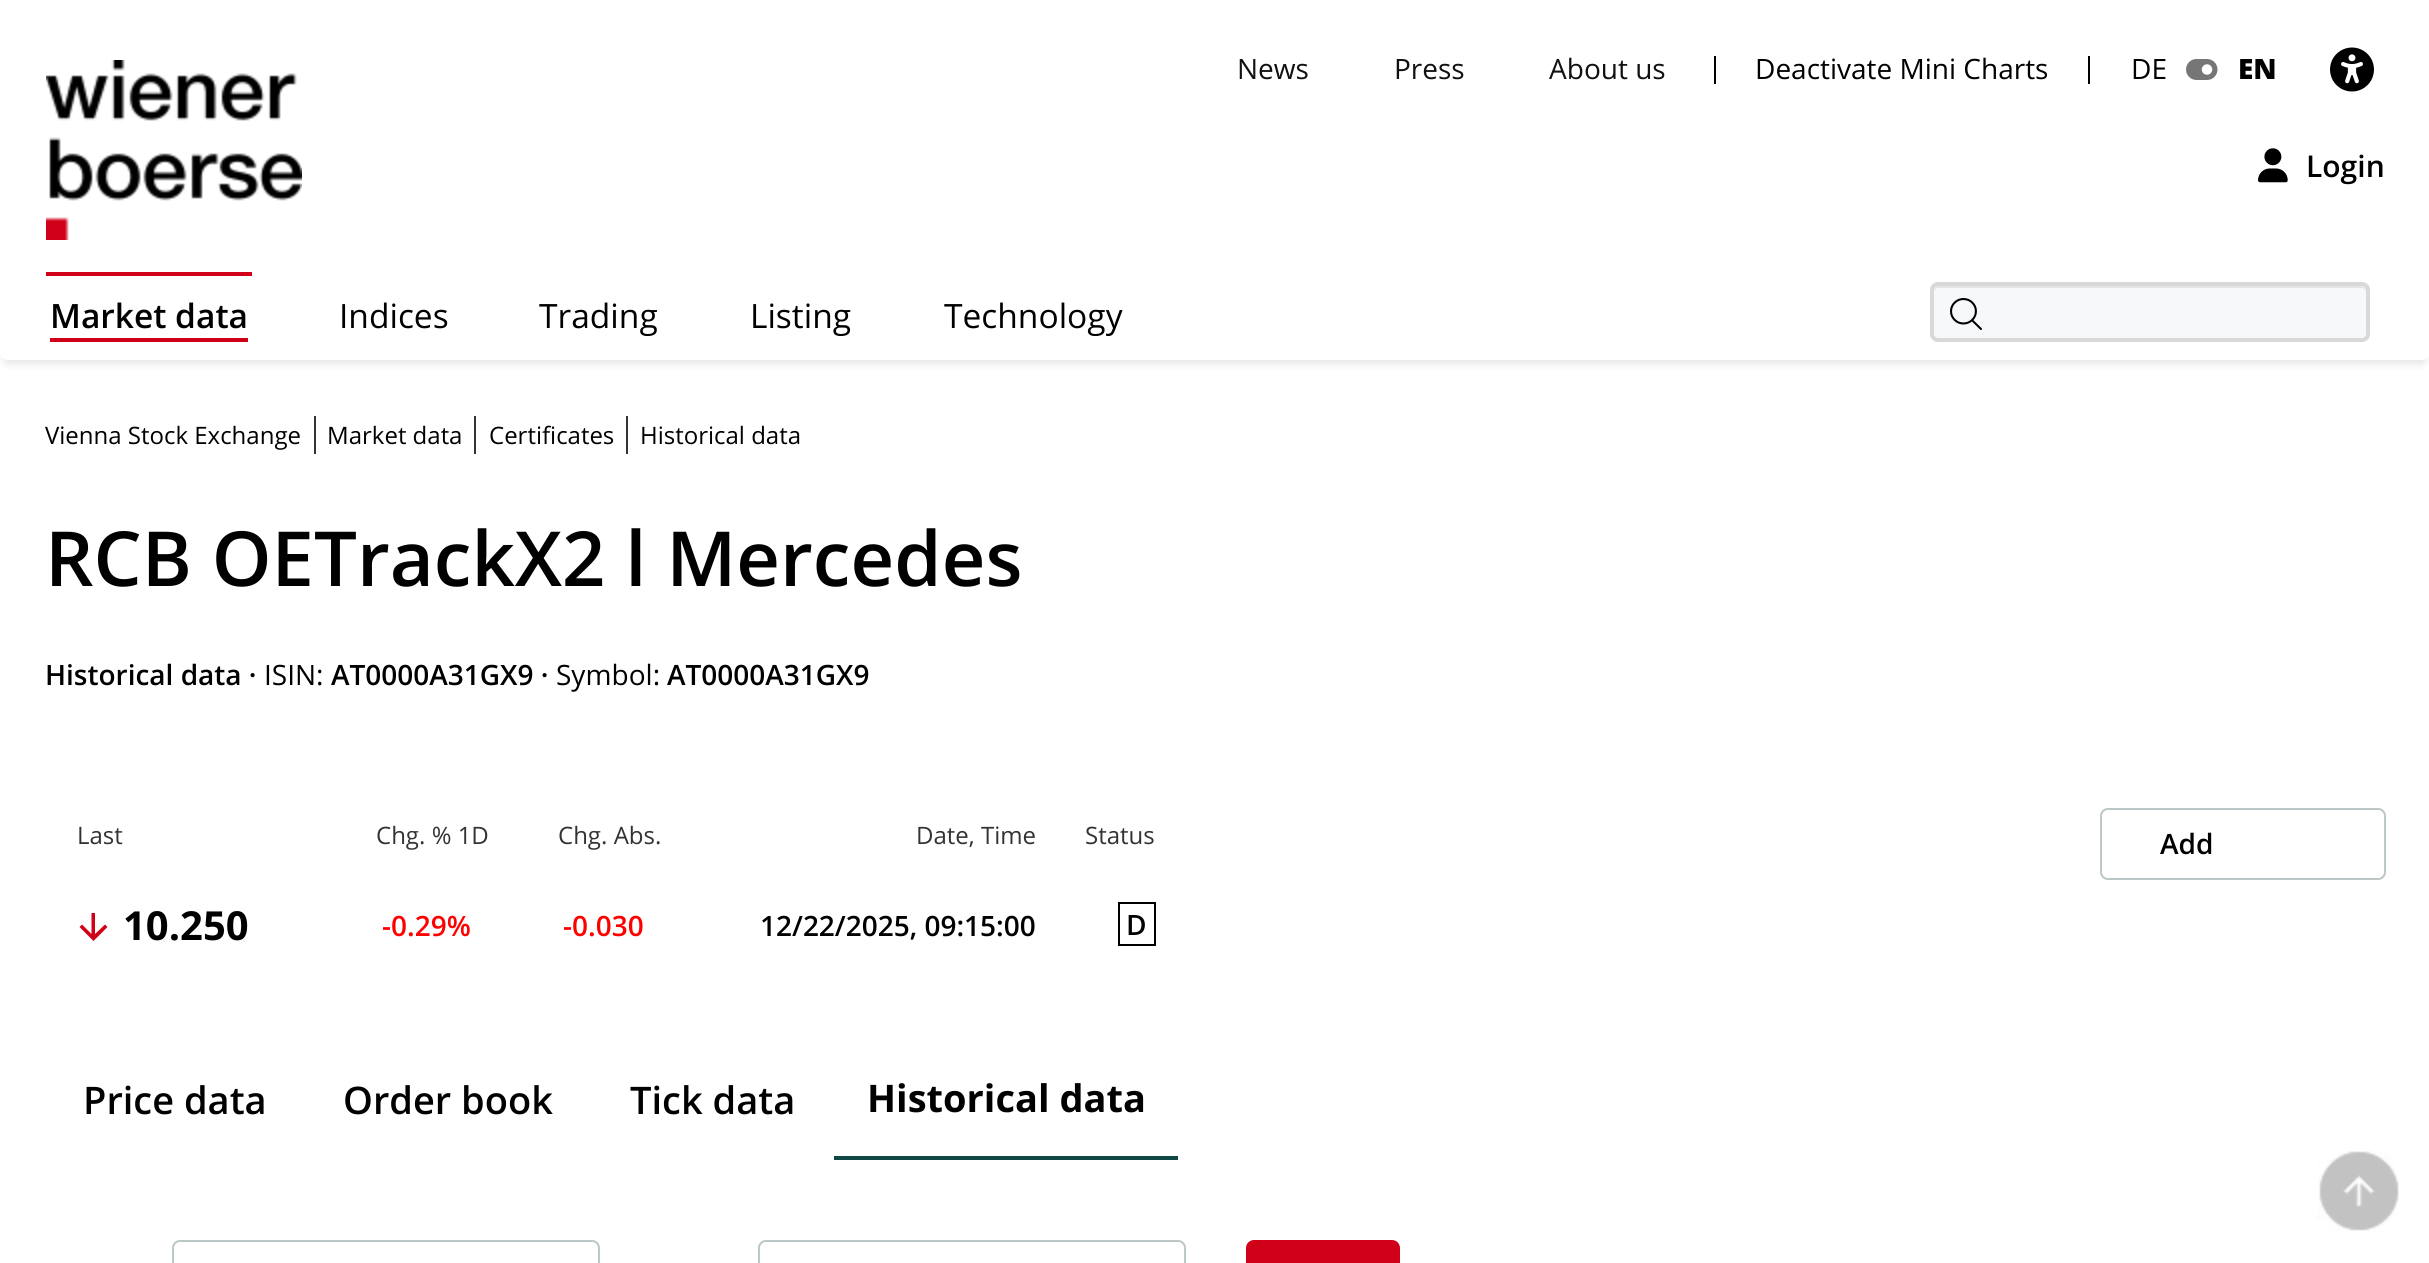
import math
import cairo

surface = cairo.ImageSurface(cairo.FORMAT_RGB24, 2429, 1263)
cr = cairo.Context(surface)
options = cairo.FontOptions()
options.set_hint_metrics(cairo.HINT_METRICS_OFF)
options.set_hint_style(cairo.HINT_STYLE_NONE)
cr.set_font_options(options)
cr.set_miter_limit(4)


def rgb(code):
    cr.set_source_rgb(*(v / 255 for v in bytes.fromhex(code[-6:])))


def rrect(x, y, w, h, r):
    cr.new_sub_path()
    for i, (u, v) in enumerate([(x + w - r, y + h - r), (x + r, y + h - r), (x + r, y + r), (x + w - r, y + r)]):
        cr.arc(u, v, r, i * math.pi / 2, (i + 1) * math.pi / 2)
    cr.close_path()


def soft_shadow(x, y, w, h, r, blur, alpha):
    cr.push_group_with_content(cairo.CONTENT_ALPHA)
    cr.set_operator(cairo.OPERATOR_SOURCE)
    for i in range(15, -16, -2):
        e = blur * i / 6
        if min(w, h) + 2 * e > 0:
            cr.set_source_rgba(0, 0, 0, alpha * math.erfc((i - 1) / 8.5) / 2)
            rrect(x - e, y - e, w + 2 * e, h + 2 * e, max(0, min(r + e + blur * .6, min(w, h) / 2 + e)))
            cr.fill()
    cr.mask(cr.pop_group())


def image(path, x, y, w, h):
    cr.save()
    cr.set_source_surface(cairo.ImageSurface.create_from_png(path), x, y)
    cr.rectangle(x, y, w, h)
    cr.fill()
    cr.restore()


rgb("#ffffff")
cr.paint()
rgb("#000000")
cr.rectangle(2088, 56, 2, 28)
cr.fill()
cr.rectangle(1714, 56, 2, 28)
cr.fill()
image("img/1.png", 2186, 59, 32, 21)
image("img/2.png", 2330, 47, 44, 45)
image("img/3.png", 46, 60, 256, 180)
image("img/4.png", 2258, 148, 30, 35)
rgb("#000000")
soft_shadow(4, 284, 2422, 80, 4, 4, 0.1)
rgb("#ffffff")
rrect(0, 272, 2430, 88, 8)
cr.fill()
rgb("#d10019")
cr.rectangle(46, 272, 206, 4)
cr.fill()
cr.rectangle(50, 338, 198, 4)
cr.fill()
rgb("#f7f8fa")
rrect(1930, 282, 440, 60, 8)
cr.fill()
rgb("#e4e5e7")
cr.new_path()
cr.move_to(1938, 288)
cr.line_to(2362, 288)
cr.curve_to(2364, 288, 2366, 290, 2366, 292)
cr.line_to(2366, 290)
cr.curve_to(2366, 288, 2364, 286, 2362, 286)
cr.line_to(1938, 286)
cr.curve_to(1936, 286, 1934, 288, 1934, 290)
cr.line_to(1934, 292)
cr.curve_to(1934, 290, 1936, 288, 1938, 288)
cr.close_path()
cr.fill()
rrect(1932, 284, 436, 56, 6)
rgb("#d9d9d9")
cr.set_line_width(4)
cr.stroke()
image("img/5.png", 1950, 298, 32, 32)
for x, y, w, h, color in [
    (314, 416, 2, 38, "#333333"),
    (474, 416, 2, 38, "#333333"),
    (626, 416, 2, 38, "#333333"),
]:
    rgb(color)
    cr.rectangle(x, y, w, h)
    cr.fill()
rgb("#d10019")
cr.new_path()
cr.move_to(107.5, 927)
cr.line_to(93.5, 941)
cr.line_to(79.5, 927)
cr.line_to(82, 924.5)
cr.line_to(91.5, 934)
cr.line_to(91.5, 913)
cr.line_to(95, 913)
cr.line_to(95, 934)
cr.line_to(105, 924.5)
cr.close_path()
cr.fill()
cr.rectangle(1119, 903, 36, 42)
rgb("#000000")
cr.set_line_width(2)
cr.stroke()
rrect(2101, 809, 284, 70, 7)
rgb("#bcc7c7")
cr.stroke()
rgb("#0f4744")
cr.rectangle(834, 1156, 344, 4)
cr.fill()
rrect(173, 1241, 426, 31, 7)
rgb("#bcc7c7")
cr.stroke()
rrect(759, 1241, 426, 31, 7)
cr.stroke()
rgb("#d10019")
rrect(1247, 1241, 152, 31, 7)
cr.fill_preserve()
cr.stroke()
image("img/6.png", 2317, 1151, 82, 80)
cr.select_font_face("Open Sans")
cr.set_font_size(28)
rgb("#111111")
for x, y, s in [
    (1237, 79, "News"),
    (1394, 79, "Press"),
    (1549, 79, "About us"),
]:
    cr.move_to(x, y)
    cr.show_text(s)
rgb("#000000")
cr.move_to(1755, 79)
cr.show_text("Deactivate Mini Charts")
cr.move_to(2131, 79)
cr.show_text("DE")
cr.select_font_face("Open Sans ExtraBold")
cr.move_to(2238, 79)
cr.show_text("EN")
cr.select_font_face("Open Sans SemiBold")
cr.set_font_size(30)
cr.move_to(2306, 177)
cr.show_text("Login")
cr.set_font_size(33.5)
cr.move_to(50, 328)
cr.show_text("Market data")
cr.select_font_face("Open Sans")
for x, y, s in [
    (339, 328, "Indices"),
    (539, 328, "Trading"),
    (750, 328, "Listing"),
    (944, 328, "Technology"),
]:
    cr.move_to(x, y)
    cr.show_text(s)
cr.set_font_size(24)
for x, y, s in [
    (45, 444, "Vienna Stock Exchange"),
    (327, 444, "Market data"),
    (489, 444, "Certificates"),
    (640, 444, "Historical data"),
]:
    cr.move_to(x, y)
    cr.show_text(s)
cr.select_font_face("Open Sans SemiBold")
cr.set_font_size(76)
cr.move_to(45, 586)
cr.show_text("RCB OETrackX2 l Mercedes")
cr.set_font_size(28)
cr.move_to(45, 685)
cr.show_text("Historical data ·")
cr.select_font_face("Open Sans")
cr.move_to(264, 685)
cr.show_text("ISIN:")
cr.select_font_face("Open Sans SemiBold")
cr.move_to(331, 685)
cr.show_text("AT0000A31GX9 ·")
cr.select_font_face("Open Sans")
cr.move_to(556, 685)
cr.show_text("Symbol:")
cr.select_font_face("Open Sans SemiBold")
cr.move_to(667, 685)
cr.show_text("AT0000A31GX9")
cr.select_font_face("Open Sans")
cr.set_font_size(24)
rgb("#333333")
for x, y, s in [
    (77, 844, "Last"),
    (376, 844, "Chg. % 1D"),
    (558, 844, "Chg. Abs."),
    (916, 844, "Date, Time"),
    (1085, 844, "Status"),
]:
    cr.move_to(x, y)
    cr.show_text(s)
cr.select_font_face("Open Sans", cairo.FONT_SLANT_NORMAL, cairo.FONT_WEIGHT_BOLD)
cr.set_font_size(40)
rgb("#000000")
cr.move_to(123, 940)
cr.show_text("10.250")
cr.select_font_face("Open Sans SemiBold")
cr.set_font_size(28)
rgb("#ff0000")
cr.move_to(382, 936)
cr.show_text("-0.29%")
cr.move_to(563, 936)
cr.show_text("-0.030")
rgb("#000000")
for x, y, s in [
    (760, 936, "12/22/2025, 09:15:00"),
    (1126, 935, "D"),
    (2160, 854, "Add"),
]:
    cr.move_to(x, y)
    cr.show_text(s)
cr.set_font_size(38)
for x, y, s in [
    (83, 1114, "Price data"),
    (343, 1114, "Order book"),
    (630, 1114, "Tick data"),
]:
    cr.move_to(x, y)
    cr.show_text(s)
cr.select_font_face("Open Sans", cairo.FONT_SLANT_NORMAL, cairo.FONT_WEIGHT_BOLD)
cr.move_to(867, 1112)
cr.show_text("Historical data")
surface.write_to_png("page.png")
